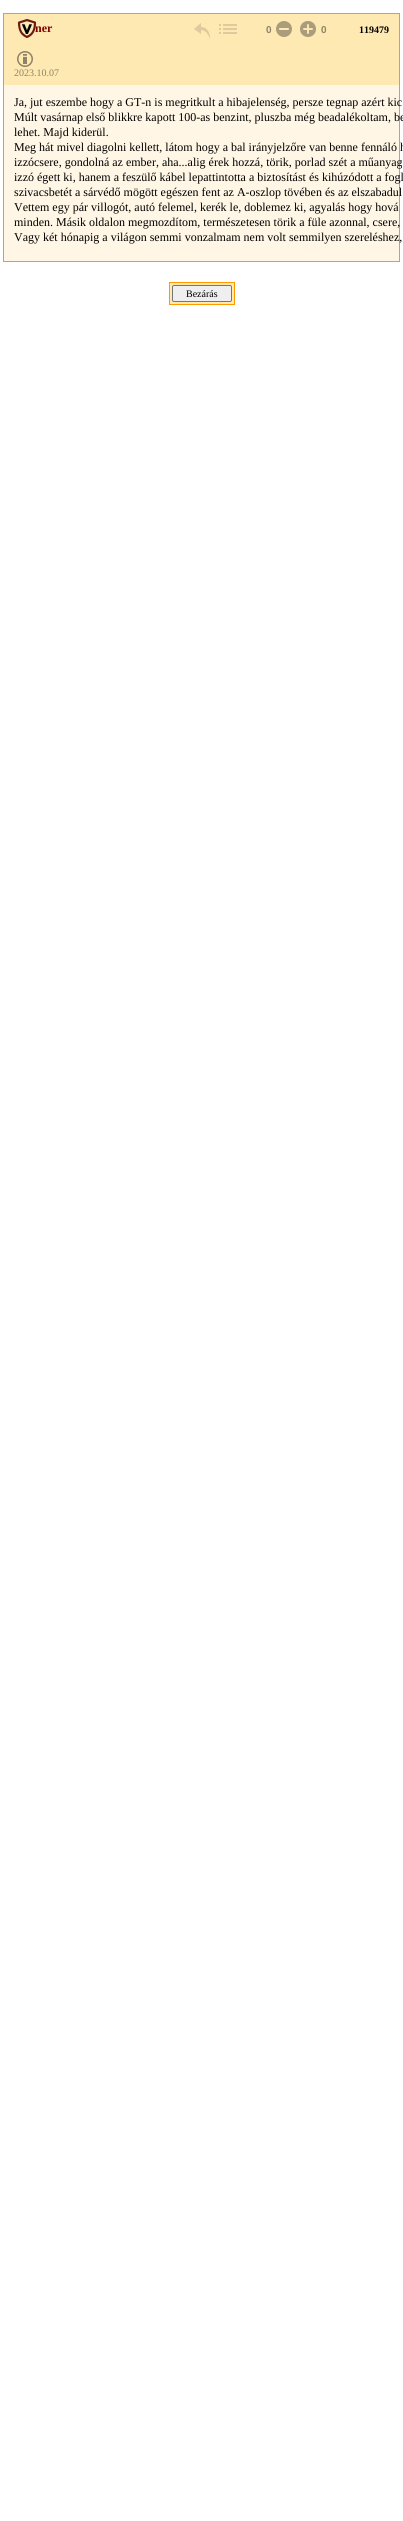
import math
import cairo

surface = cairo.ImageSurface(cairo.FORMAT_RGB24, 403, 2521)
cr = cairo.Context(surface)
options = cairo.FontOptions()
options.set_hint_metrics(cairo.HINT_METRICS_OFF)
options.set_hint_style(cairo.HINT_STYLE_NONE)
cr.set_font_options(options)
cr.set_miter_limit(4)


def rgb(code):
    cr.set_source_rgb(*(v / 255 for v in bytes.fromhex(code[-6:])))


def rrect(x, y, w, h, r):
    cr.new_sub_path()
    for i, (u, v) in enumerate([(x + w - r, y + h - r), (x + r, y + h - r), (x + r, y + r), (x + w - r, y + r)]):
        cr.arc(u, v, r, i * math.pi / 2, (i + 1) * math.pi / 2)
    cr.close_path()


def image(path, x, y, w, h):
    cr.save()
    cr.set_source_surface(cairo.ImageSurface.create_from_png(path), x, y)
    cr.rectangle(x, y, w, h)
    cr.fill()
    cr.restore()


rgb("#ffffff")
cr.paint()
for x, y, w, h, color in [
    (3, 13, 397, 1, "#ff9900"),
    (399, 13, 1, 249, "#ff9900"),
    (3, 261, 397, 1, "#ff9900"),
    (3, 13, 1, 249, "#ff9900"),
    (4, 14, 395, 71, "#ffe9b3"),
]:
    rgb(color)
    cr.rectangle(x, y, w, h)
    cr.fill()
image("img/2.png", 17, 51, 16, 16)
image("img/3.png", 194, 23, 16, 16)
image("img/4.png", 219, 24, 18, 10)
image("img/5.png", 276, 21, 16, 16)
image("img/6.png", 300, 21, 16, 16)
rgb("#fff6e5")
cr.rectangle(4, 85, 395, 176)
cr.fill()
rgb("#ffe9b3")
cr.rectangle(169.5, 282.5, 65, 22)
cr.fill_preserve()
rgb("#ff9900")
cr.set_line_width(1)
cr.stroke()
rgb("#efefef")
rrect(172.5, 285.5, 59, 16, 1.5)
cr.fill_preserve()
rgb("#767676")
cr.stroke()
cr.select_font_face("Liberation Serif", cairo.FONT_SLANT_NORMAL, cairo.FONT_WEIGHT_BOLD)
cr.set_font_size(12)
rgb("#800000")
cr.move_to(35, 32)
cr.show_text("ner")
image("img/1.png", 18, 19, 18, 19)
cr.select_font_face("Liberation Serif")
cr.set_font_size(10)
rgb("#8f8365")
cr.move_to(14, 76)
cr.show_text("2023.10.07")
cr.select_font_face("Liberation Sans", cairo.FONT_SLANT_NORMAL, cairo.FONT_WEIGHT_BOLD)
cr.move_to(266, 33)
cr.show_text("0")
cr.move_to(321, 33)
cr.show_text("0")
cr.select_font_face("Liberation Serif", cairo.FONT_SLANT_NORMAL, cairo.FONT_WEIGHT_BOLD)
rgb("#000000")
cr.move_to(359, 33)
cr.show_text("119479")
cr.select_font_face("Liberation Serif")
cr.set_font_size(12)
for x, y, s in [
    (14, 106, "Ja, jut eszembe hogy a GT-n is megritkult a hibajelenség, persze tegnap azért kic"),
    (14, 121, "Múlt vasárnap első blikkre kapott 100-as benzint, pluszba még beadalékoltam, be"),
    (14, 136, "lehet. Majd kiderül."),
    (14, 151, "Meg hát mivel diagolni kellett, látom hogy a bal irányjelzőre van benne fennáló h"),
    (14, 166, "izzócsere, gondolná az ember, aha...alig érek hozzá, törik, porlad szét a műanyag"),
    (14, 181, "izzó égett ki, hanem a feszülő kábel lepattintotta a biztosítást és kihúzódott a fogl"),
    (14, 196, "szivacsbetét a sárvédő mögött egészen fent az A-oszlop tövében és az elszabadul"),
    (14, 211, "Vettem egy pár villogót, autó felemel, kerék le, doblemez ki, agyalás hogy hová"),
    (14, 226, "minden. Másik oldalon megmozdítom, természetesen törik a füle azonnal, csere,"),
    (14, 241, "Vagy két hónapig a világon semmi vonzalmam nem volt semmilyen szereléshez,"),
]:
    cr.move_to(x, y)
    cr.show_text(s)
cr.set_font_size(10)
cr.move_to(186, 297)
cr.show_text("Bezárás")
surface.write_to_png("page.png")
